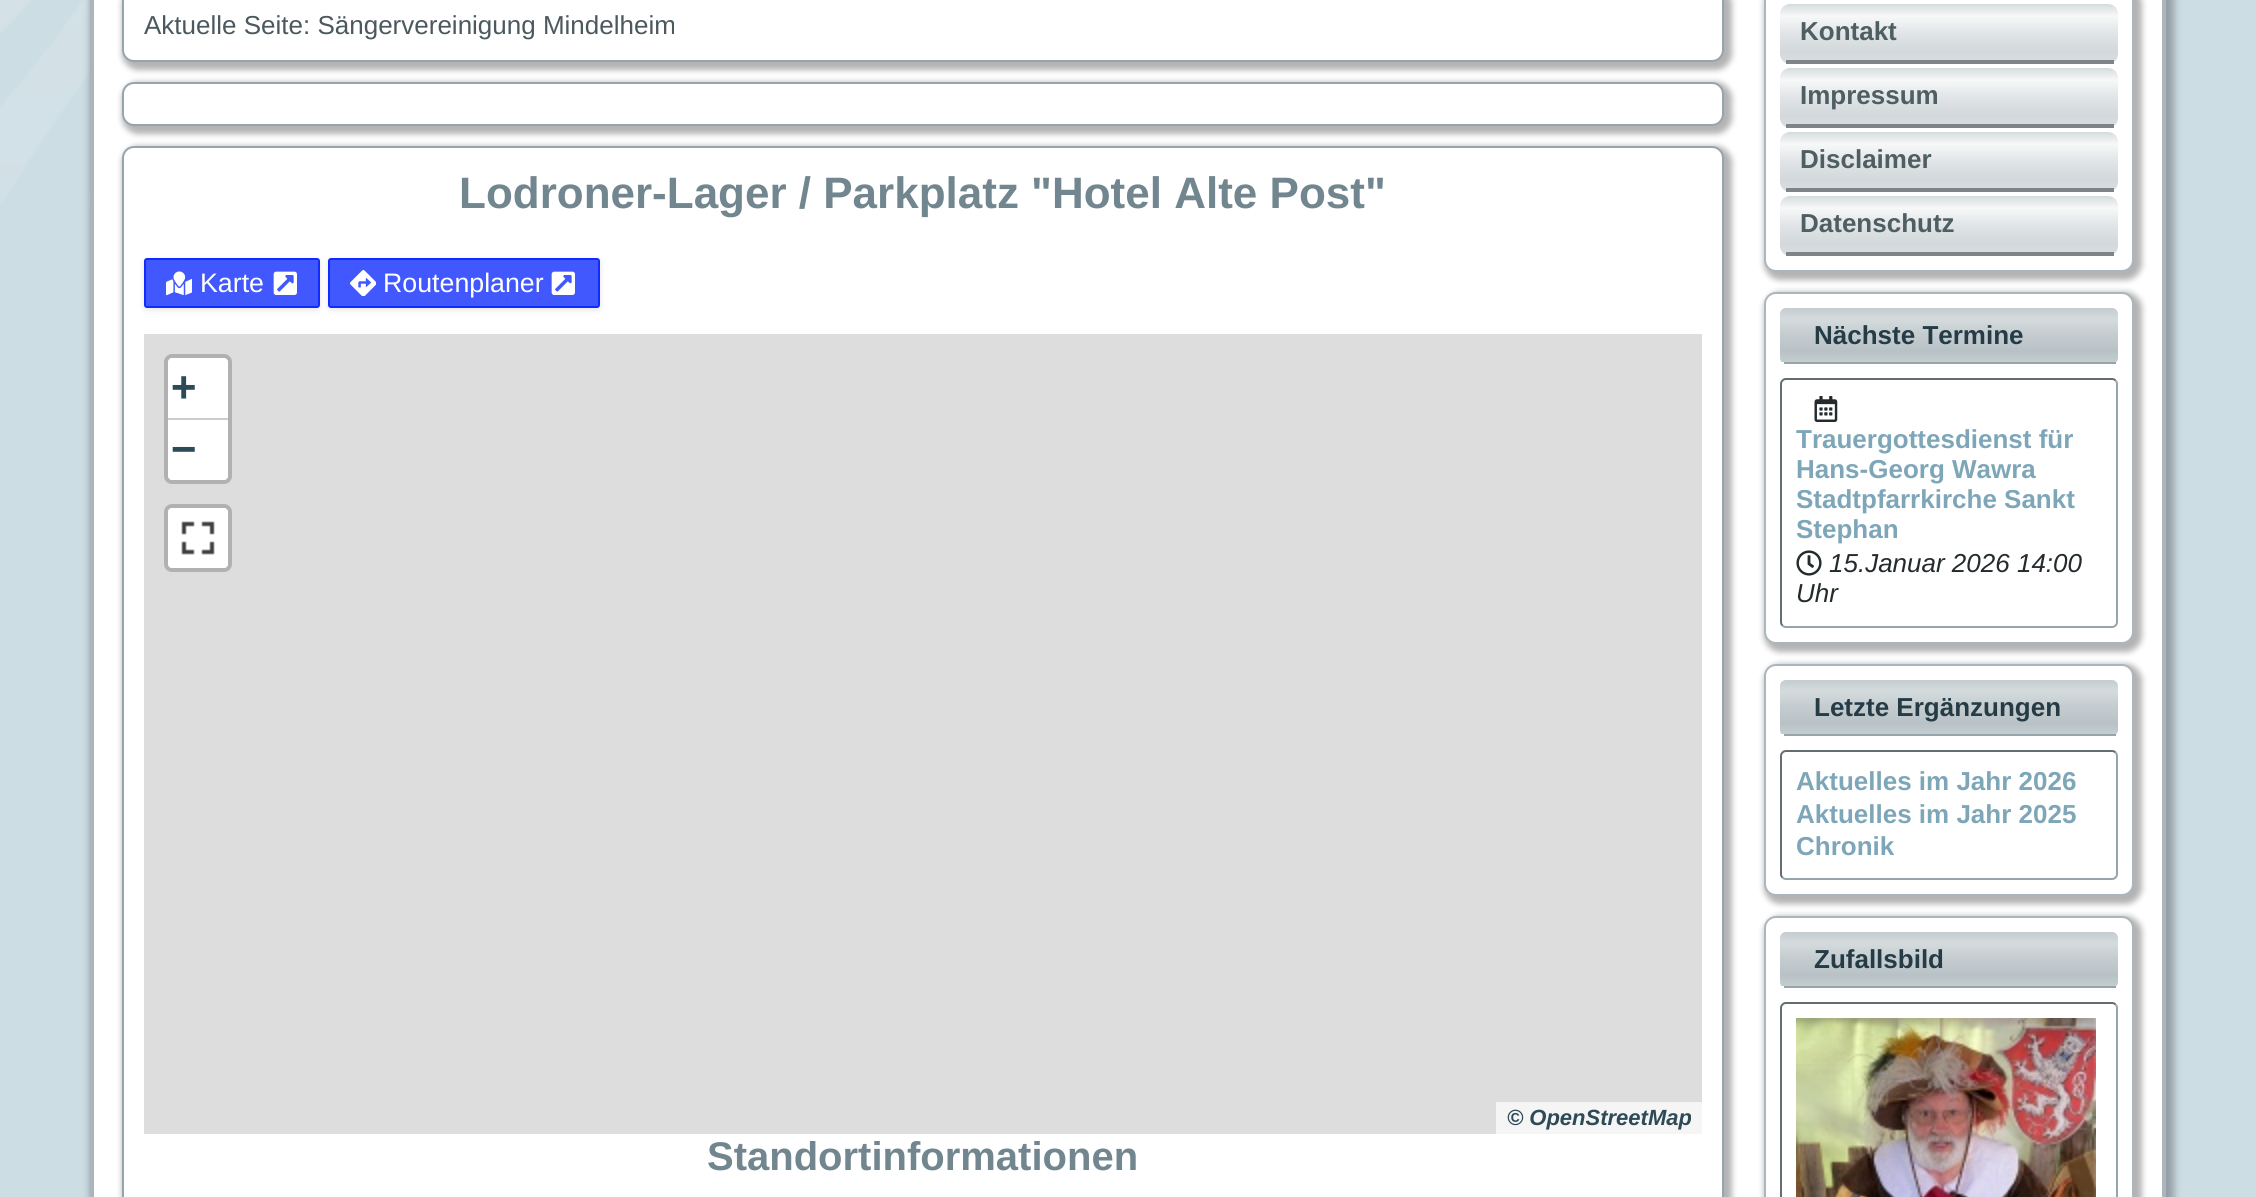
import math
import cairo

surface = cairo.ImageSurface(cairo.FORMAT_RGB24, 2256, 1197)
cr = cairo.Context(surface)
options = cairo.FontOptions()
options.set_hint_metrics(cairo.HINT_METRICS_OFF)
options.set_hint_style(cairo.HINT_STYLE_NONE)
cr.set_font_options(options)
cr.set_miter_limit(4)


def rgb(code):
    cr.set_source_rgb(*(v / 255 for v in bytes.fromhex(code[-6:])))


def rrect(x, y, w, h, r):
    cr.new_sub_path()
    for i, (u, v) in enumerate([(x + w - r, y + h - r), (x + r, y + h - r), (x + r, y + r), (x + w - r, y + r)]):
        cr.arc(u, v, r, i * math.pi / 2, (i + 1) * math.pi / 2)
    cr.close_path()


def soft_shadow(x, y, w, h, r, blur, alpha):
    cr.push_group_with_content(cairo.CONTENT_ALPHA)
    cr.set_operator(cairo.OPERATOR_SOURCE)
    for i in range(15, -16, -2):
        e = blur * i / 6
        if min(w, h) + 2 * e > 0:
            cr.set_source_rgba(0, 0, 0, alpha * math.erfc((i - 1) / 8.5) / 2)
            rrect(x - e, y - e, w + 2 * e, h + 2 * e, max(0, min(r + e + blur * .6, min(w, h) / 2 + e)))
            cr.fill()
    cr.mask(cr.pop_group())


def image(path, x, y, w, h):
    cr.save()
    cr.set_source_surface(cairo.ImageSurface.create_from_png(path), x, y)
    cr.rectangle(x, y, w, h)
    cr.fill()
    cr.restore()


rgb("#cddde4")
cr.paint()
image("img/1.png", 0, 0, 90, 203)
rgb("#000000")
soft_shadow(90, -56, 2084, 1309, 44, 4, 0.29)
rgb("#ffffff")
cr.rectangle(92, -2, 2072, 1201)
cr.fill_preserve()
rgb("#aab6bb")
cr.set_line_width(4)
cr.stroke()
rgb("#000000")
soft_shadow(122, -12, 1610, 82, 16, 3, 0.3)
rgb("#ffffff")
rrect(123, -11, 1600, 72, 11)
cr.fill_preserve()
rgb("#96a5ab")
cr.set_line_width(2)
cr.stroke()
rgb("#000000")
soft_shadow(122, 82, 1610, 52, 16, 3, 0.3)
rgb("#ffffff")
rrect(123, 83, 1600, 42, 11)
cr.fill_preserve()
rgb("#96a5ab")
cr.stroke()
rgb("#000000")
soft_shadow(122, 146, 1610, 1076, 16, 3, 0.3)
rgb("#ffffff")
rrect(123, 147, 1600, 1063, 11)
cr.fill_preserve()
rgb("#96a5ab")
cr.stroke()
rgb("#000000")
soft_shadow(144, 260, 176, 50, 3, 3, 0.1)
rgb("#4258ff")
rrect(145, 259, 174, 48, 2)
cr.fill_preserve()
rgb("#0f2bff")
cr.stroke()
image("img/2.png", 166, 271, 26, 25)
image("img/3.png", 273, 271, 24, 24)
rgb("#000000")
soft_shadow(328, 260, 272, 50, 3, 3, 0.1)
rgb("#4258ff")
rrect(329, 259, 270, 48, 2)
cr.fill_preserve()
rgb("#0f2bff")
cr.stroke()
image("img/4.png", 350, 270, 26, 26)
image("img/3.png", 551, 271, 24, 24)
rgb("#dddddd")
cr.rectangle(144, 334, 1558, 800)
cr.fill()
rrect(166, 356, 64, 126, 6)
rgb("#b1b1b1")
cr.set_line_width(4)
cr.stroke()
rgb("#ffffff")
cr.new_path()
cr.move_to(172, 358)
cr.line_to(224, 358)
cr.curve_to(226, 358, 228, 360, 228, 362)
cr.line_to(228, 420)
cr.line_to(168, 420)
cr.line_to(168, 362)
cr.curve_to(168, 360, 170, 358, 172, 358)
cr.close_path()
cr.fill()
rgb("#cccccc")
cr.rectangle(168, 418, 60, 2)
cr.fill()
rgb("#ffffff")
cr.new_path()
cr.move_to(168, 420)
cr.line_to(228, 420)
cr.line_to(228, 476)
cr.curve_to(228, 478, 226, 480, 224, 480)
cr.line_to(172, 480)
cr.curve_to(170, 480, 168, 478, 168, 476)
cr.close_path()
cr.fill()
rrect(166, 506, 64, 64, 6)
rgb("#b1b1b1")
cr.stroke()
rgb("#ffffff")
rrect(168, 508, 60, 60, 4)
cr.fill()
image("img/5.png", 181, 521, 34, 34)
rgb("#f5f5f5")
cr.rectangle(1496, 1102, 206, 32)
cr.fill()
rgb("#000000")
soft_shadow(1764, -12, 378, 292, 16, 3, 0.3)
rgb("#ffffff")
rrect(1765, -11, 368, 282, 11)
cr.fill_preserve()
rgb("#aab6bb")
cr.set_line_width(2)
cr.stroke()
gradient = cairo.LinearGradient(1949, 4, 1949, 64)
gradient.add_color_stop_rgba(0, 0.835, 0.859, 0.867, 1)
gradient.add_color_stop_rgba(0.2, 0.969, 0.973, 0.973, 1)
gradient.add_color_stop_rgba(0.5, 0.878, 0.894, 0.902, 1)
gradient.add_color_stop_rgba(0.8, 0.824, 0.847, 0.859, 1)
gradient.add_color_stop_rgba(1, 0.855, 0.875, 0.882, 1)
cr.set_source(gradient)
rrect(1780, 4, 338, 60, 10)
cr.fill()
rgb("#7f8587")
cr.rectangle(1786, 60, 328, 4)
cr.fill()
gradient = cairo.LinearGradient(1949, 68, 1949, 128)
gradient.add_color_stop_rgba(0, 0.835, 0.859, 0.867, 1)
gradient.add_color_stop_rgba(0.2, 0.969, 0.973, 0.973, 1)
gradient.add_color_stop_rgba(0.5, 0.878, 0.894, 0.902, 1)
gradient.add_color_stop_rgba(0.8, 0.824, 0.847, 0.859, 1)
gradient.add_color_stop_rgba(1, 0.855, 0.875, 0.882, 1)
cr.set_source(gradient)
rrect(1780, 68, 338, 60, 10)
cr.fill()
rgb("#7f8587")
cr.rectangle(1786, 124, 328, 4)
cr.fill()
gradient = cairo.LinearGradient(1949, 132, 1949, 192)
gradient.add_color_stop_rgba(0, 0.835, 0.859, 0.867, 1)
gradient.add_color_stop_rgba(0.2, 0.969, 0.973, 0.973, 1)
gradient.add_color_stop_rgba(0.5, 0.878, 0.894, 0.902, 1)
gradient.add_color_stop_rgba(0.8, 0.824, 0.847, 0.859, 1)
gradient.add_color_stop_rgba(1, 0.855, 0.875, 0.882, 1)
cr.set_source(gradient)
rrect(1780, 132, 338, 60, 10)
cr.fill()
rgb("#7f8587")
cr.rectangle(1786, 188, 328, 4)
cr.fill()
gradient = cairo.LinearGradient(1949, 196, 1949, 256)
gradient.add_color_stop_rgba(0, 0.835, 0.859, 0.867, 1)
gradient.add_color_stop_rgba(0.2, 0.969, 0.973, 0.973, 1)
gradient.add_color_stop_rgba(0.5, 0.878, 0.894, 0.902, 1)
gradient.add_color_stop_rgba(0.8, 0.824, 0.847, 0.859, 1)
gradient.add_color_stop_rgba(1, 0.855, 0.875, 0.882, 1)
cr.set_source(gradient)
rrect(1780, 196, 338, 60, 10)
cr.fill()
rgb("#7f8587")
cr.rectangle(1786, 252, 328, 4)
cr.fill()
rgb("#000000")
soft_shadow(1764, 292, 378, 360, 16, 3, 0.3)
rgb("#ffffff")
rrect(1765, 293, 368, 350, 11)
cr.fill_preserve()
rgb("#aab6bb")
cr.stroke()
cr.save()
rrect(1780, 308, 338, 56, 6)
cr.clip()
gradient = cairo.LinearGradient(1949, 308, 1949, 362)
gradient.add_color_stop_rgba(0, 0.769, 0.8, 0.812, 1)
gradient.add_color_stop_rgba(0.2, 0.835, 0.859, 0.867, 1)
gradient.add_color_stop_rgba(0.5, 0.769, 0.8, 0.812, 1)
gradient.add_color_stop_rgba(0.8, 0.722, 0.761, 0.776, 1)
gradient.add_color_stop_rgba(1, 0.769, 0.8, 0.812, 1)
cr.set_source(gradient)
cr.new_path()
cr.move_to(1786, 308)
cr.line_to(2112, 308)
cr.curve_to(2115.5, 308, 2118, 310.5, 2118, 314)
cr.line_to(2118, 362)
cr.line_to(1780, 362)
cr.line_to(1780, 314)
cr.curve_to(1780, 310.5, 1782.5, 308, 1786, 308)
cr.close_path()
cr.fill()
cr.restore()
rgb("#96a5ab")
cr.rectangle(1784, 362, 332, 2)
cr.fill()
cr.new_path()
cr.move_to(2115.5, 380.5)
cr.curve_to(2116.5, 381.5, 2117, 382.5, 2117, 384)
cr.line_to(2117, 622)
cr.curve_to(2117, 623.5, 2116.5, 624.5, 2115.5, 625.5)
cr.curve_to(2114.5, 626.5, 2113.5, 627, 2112, 627)
cr.line_to(1786, 627)
cr.curve_to(1784.5, 627, 1783.5, 626.5, 1782.5, 625.5)
cr.stroke()
cr.new_path()
cr.move_to(1782.5, 625.5)
cr.curve_to(1781.5, 624.5, 1781, 623.5, 1781, 622)
cr.line_to(1781, 384)
cr.curve_to(1781, 382.5, 1781.5, 381.5, 1782.5, 380.5)
cr.curve_to(1783.5, 379.5, 1784.5, 379, 1786, 379)
cr.line_to(2112, 379)
cr.curve_to(2113.5, 379, 2114.5, 379.5, 2115.5, 380.5)
rgb("#646e72")
cr.stroke()
image("img/6.png", 1814, 396, 24, 26)
image("img/7.png", 1796, 550, 26, 26)
rgb("#000000")
soft_shadow(1764, 664, 378, 240, 16, 3, 0.3)
rgb("#ffffff")
rrect(1765, 665, 368, 230, 11)
cr.fill_preserve()
rgb("#aab6bb")
cr.stroke()
cr.save()
rrect(1780, 680, 338, 56, 6)
cr.clip()
gradient = cairo.LinearGradient(1949, 680, 1949, 734)
gradient.add_color_stop_rgba(0, 0.769, 0.8, 0.812, 1)
gradient.add_color_stop_rgba(0.2, 0.835, 0.859, 0.867, 1)
gradient.add_color_stop_rgba(0.5, 0.769, 0.8, 0.812, 1)
gradient.add_color_stop_rgba(0.8, 0.722, 0.761, 0.776, 1)
gradient.add_color_stop_rgba(1, 0.769, 0.8, 0.812, 1)
cr.set_source(gradient)
cr.new_path()
cr.move_to(1786, 680)
cr.line_to(2112, 680)
cr.curve_to(2115.5, 680, 2118, 682.5, 2118, 686)
cr.line_to(2118, 734)
cr.line_to(1780, 734)
cr.line_to(1780, 686)
cr.curve_to(1780, 682.5, 1782.5, 680, 1786, 680)
cr.close_path()
cr.fill()
cr.restore()
rgb("#96a5ab")
cr.rectangle(1784, 734, 332, 2)
cr.fill()
cr.new_path()
cr.move_to(2115.5, 752.5)
cr.curve_to(2116.5, 753.5, 2117, 754.5, 2117, 756)
cr.line_to(2117, 874)
cr.curve_to(2117, 875.5, 2116.5, 876.5, 2115.5, 877.5)
cr.curve_to(2114.5, 878.5, 2113.5, 879, 2112, 879)
cr.line_to(1786, 879)
cr.curve_to(1784.5, 879, 1783.5, 878.5, 1782.5, 877.5)
cr.stroke()
cr.new_path()
cr.move_to(1782.5, 877.5)
cr.curve_to(1781.5, 876.5, 1781, 875.5, 1781, 874)
cr.line_to(1781, 756)
cr.curve_to(1781, 754.5, 1781.5, 753.5, 1782.5, 752.5)
cr.curve_to(1783.5, 751.5, 1784.5, 751, 1786, 751)
cr.line_to(2112, 751)
cr.curve_to(2113.5, 751, 2114.5, 751.5, 2115.5, 752.5)
rgb("#646e72")
cr.stroke()
rgb("#000000")
soft_shadow(1764, 916, 378, 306, 16, 3, 0.3)
rgb("#ffffff")
rrect(1765, 917, 368, 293, 11)
cr.fill_preserve()
rgb("#aab6bb")
cr.stroke()
cr.save()
rrect(1780, 932, 338, 56, 6)
cr.clip()
gradient = cairo.LinearGradient(1949, 932, 1949, 986)
gradient.add_color_stop_rgba(0, 0.769, 0.8, 0.812, 1)
gradient.add_color_stop_rgba(0.2, 0.835, 0.859, 0.867, 1)
gradient.add_color_stop_rgba(0.5, 0.769, 0.8, 0.812, 1)
gradient.add_color_stop_rgba(0.8, 0.722, 0.761, 0.776, 1)
gradient.add_color_stop_rgba(1, 0.769, 0.8, 0.812, 1)
cr.set_source(gradient)
cr.new_path()
cr.move_to(1786, 932)
cr.line_to(2112, 932)
cr.curve_to(2115.5, 932, 2118, 934.5, 2118, 938)
cr.line_to(2118, 986)
cr.line_to(1780, 986)
cr.line_to(1780, 938)
cr.curve_to(1780, 934.5, 1782.5, 932, 1786, 932)
cr.close_path()
cr.fill()
cr.restore()
rgb("#96a5ab")
cr.rectangle(1784, 986, 332, 2)
cr.fill()
cr.new_path()
cr.move_to(2115.5, 1004.5)
cr.curve_to(2116.5, 1005.5, 2117, 1006.5, 2117, 1008)
cr.line_to(2117, 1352)
cr.curve_to(2117, 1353.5, 2116.5, 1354.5, 2115.5, 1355.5)
cr.curve_to(2114.5, 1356.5, 2113.5, 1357, 2112, 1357)
cr.line_to(1786, 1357)
cr.curve_to(1784.5, 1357, 1783.5, 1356.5, 1782.5, 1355.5)
cr.stroke()
cr.new_path()
cr.move_to(1782.5, 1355.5)
cr.curve_to(1781.5, 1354.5, 1781, 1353.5, 1781, 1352)
cr.line_to(1781, 1008)
cr.curve_to(1781, 1006.5, 1781.5, 1005.5, 1782.5, 1004.5)
cr.curve_to(1783.5, 1003.5, 1784.5, 1003, 1786, 1003)
cr.line_to(2112, 1003)
cr.curve_to(2113.5, 1003, 2114.5, 1003.5, 2115.5, 1004.5)
rgb("#646e72")
cr.stroke()
image("img/8.png", 1796, 1018, 300, 179)
cr.select_font_face("Liberation Sans")
cr.set_font_size(26)
rgb("#4b585d")
cr.move_to(144, 34)
cr.show_text("Aktuelle Seite: Sängervereinigung Mindelheim")
cr.select_font_face("Liberation Sans", cairo.FONT_SLANT_NORMAL, cairo.FONT_WEIGHT_BOLD)
cr.set_font_size(44)
rgb("#71868e")
cr.move_to(459, 208)
cr.show_text("Lodroner-Lager / Parkplatz \"Hotel Alte Post\"")
cr.select_font_face("Liberation Sans")
cr.set_font_size(26.75)
rgb("#ffffff")
cr.move_to(200, 292)
cr.show_text("Karte")
cr.move_to(383, 292)
cr.show_text("Routenplaner")
cr.select_font_face("Liberation Sans", cairo.FONT_SLANT_ITALIC, cairo.FONT_WEIGHT_BOLD)
cr.set_font_size(44)
rgb("#2e4a56")
cr.move_to(170, 402)
cr.show_text("+")
cr.move_to(170, 464)
cr.show_text("−")
cr.set_font_size(22)
cr.move_to(1507, 1125)
cr.show_text("© OpenStreetMap")
cr.select_font_face("Liberation Sans", cairo.FONT_SLANT_NORMAL, cairo.FONT_WEIGHT_BOLD)
cr.set_font_size(40)
rgb("#71868e")
cr.move_to(707, 1170)
cr.show_text("Standortinformationen")
cr.set_font_size(26)
rgb("#4f5e63")
for x, y, s in [
    (1800, 40, "Kontakt"),
    (1800, 104, "Impressum"),
    (1800, 168, "Disclaimer"),
    (1800, 232, "Datenschutz"),
]:
    cr.move_to(x, y)
    cr.show_text(s)
rgb("#253b46")
cr.move_to(1814, 344)
cr.show_text("Nächste Termine")
cr.save()
cr.rectangle(1796, 394, 306, 218)
cr.clip()
rgb("#7ea6b9")
cr.move_to(1796, 448)
cr.show_text("Trauergottesdienst für")
cr.restore()
rgb("#7ea6b9")
for x, y, s in [
    (1796, 478, "Hans-Georg Wawra"),
    (1796, 508, "Stadtpfarrkirche Sankt"),
    (1796, 538, "Stephan"),
]:
    cr.move_to(x, y)
    cr.show_text(s)
cr.select_font_face("Liberation Sans", cairo.FONT_SLANT_ITALIC)
rgb("#242b2d")
cr.move_to(1829, 572)
cr.show_text("15.Januar 2026 14:00")
cr.move_to(1796, 602)
cr.show_text("Uhr")
cr.select_font_face("Liberation Sans", cairo.FONT_SLANT_NORMAL, cairo.FONT_WEIGHT_BOLD)
rgb("#253b46")
cr.move_to(1814, 716)
cr.show_text("Letzte Ergänzungen")
rgb("#7ea6b9")
for x, y, s in [
    (1796, 790, "Aktuelles im Jahr 2026"),
    (1796, 823, "Aktuelles im Jahr 2025"),
    (1796, 855, "Chronik"),
]:
    cr.move_to(x, y)
    cr.show_text(s)
rgb("#253b46")
cr.move_to(1814, 968)
cr.show_text("Zufallsbild")
surface.write_to_png("page.png")
